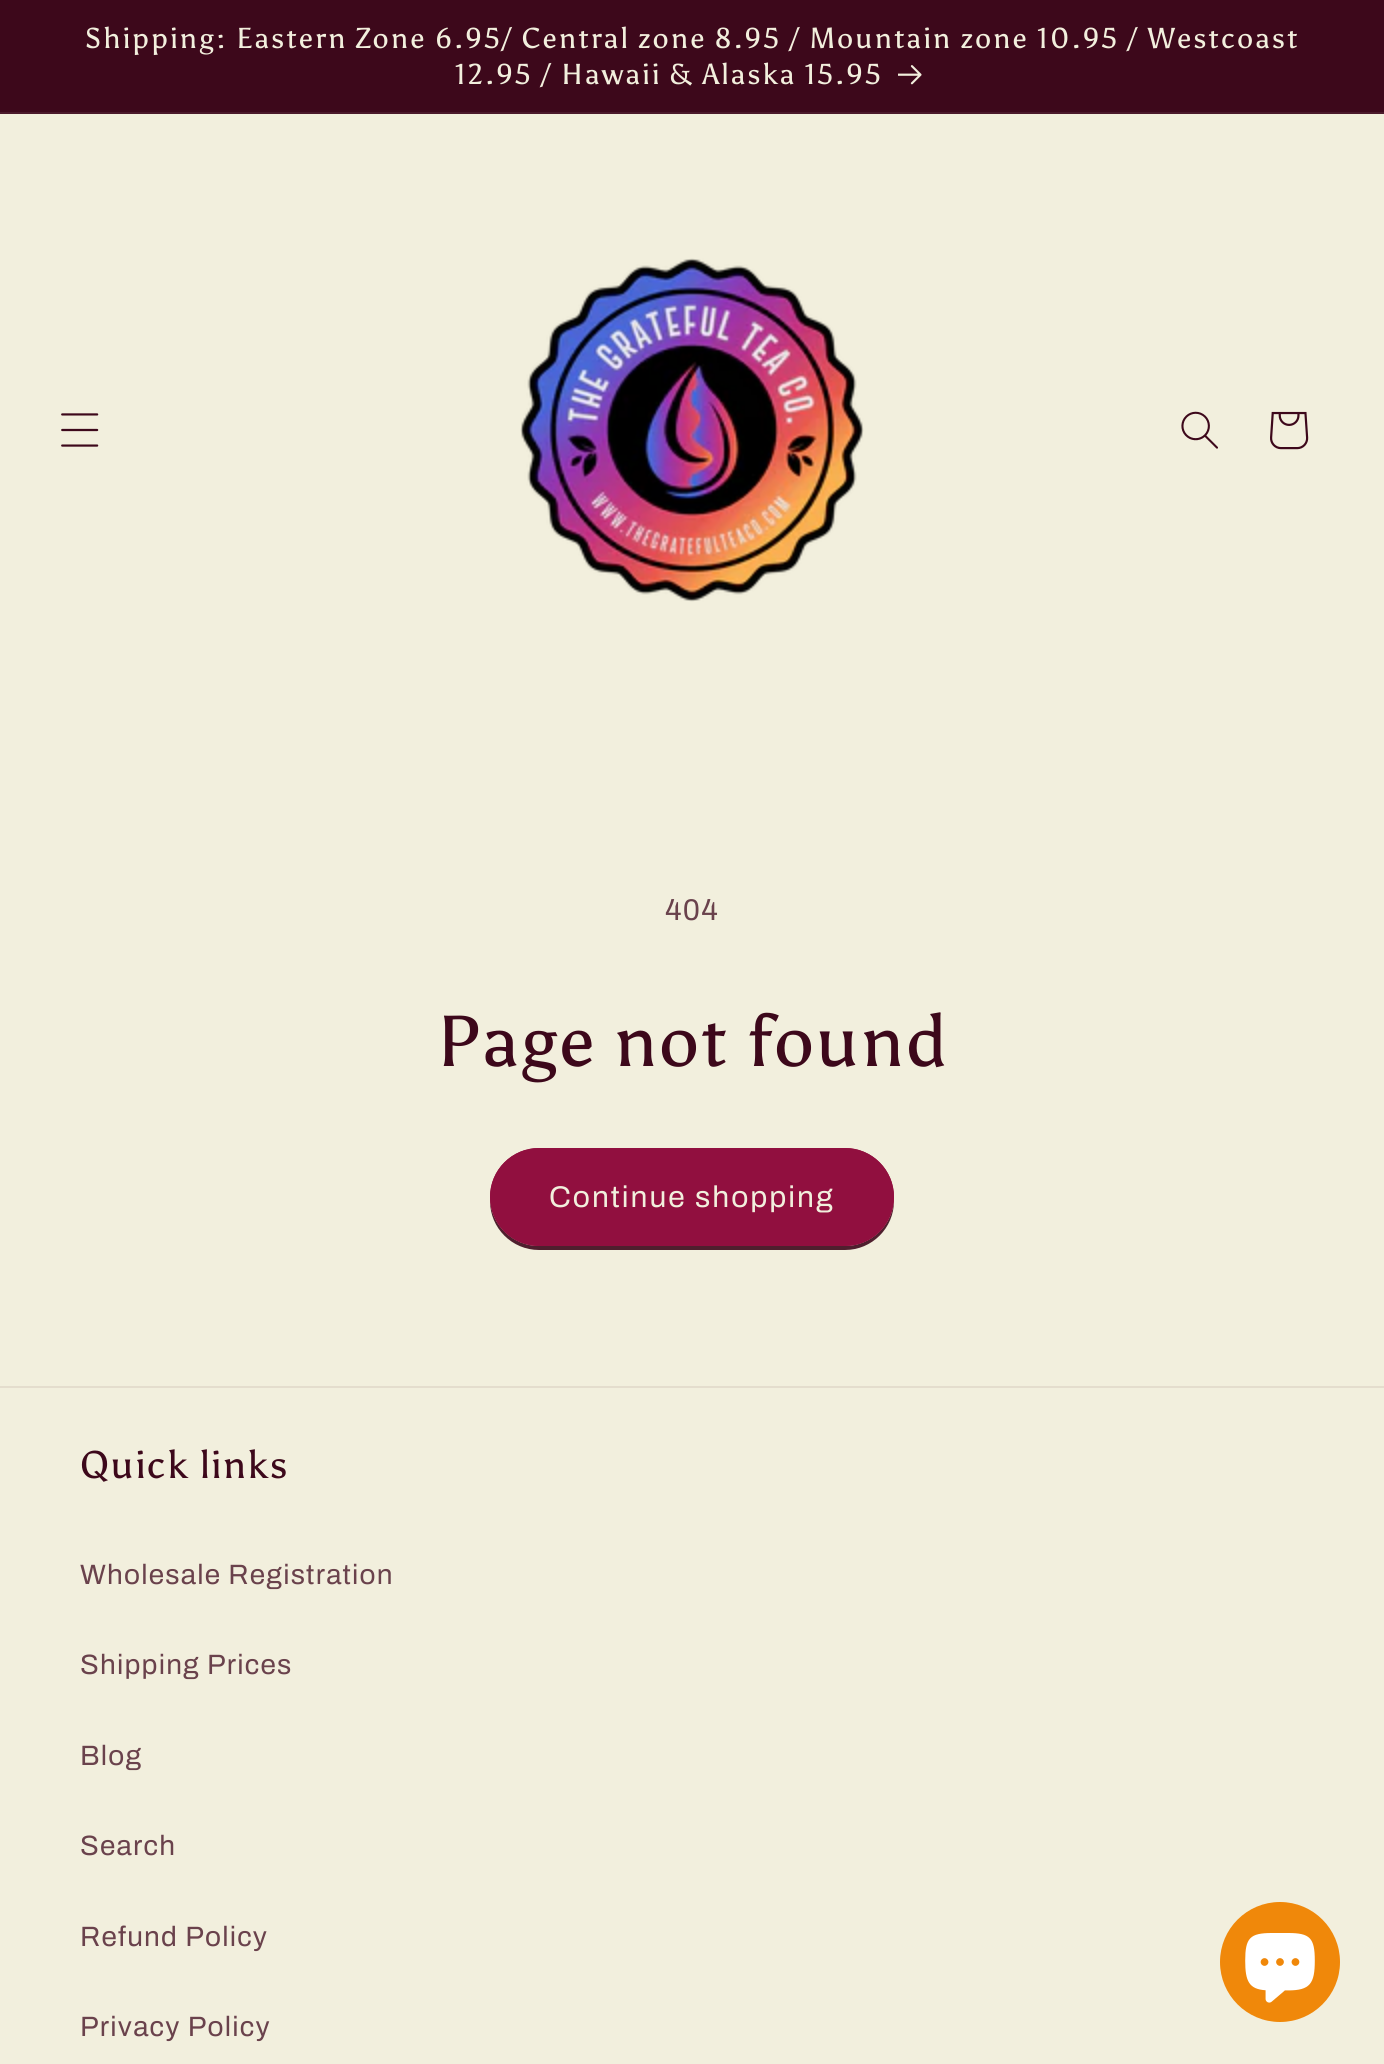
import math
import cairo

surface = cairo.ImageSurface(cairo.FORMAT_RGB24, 1384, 2064)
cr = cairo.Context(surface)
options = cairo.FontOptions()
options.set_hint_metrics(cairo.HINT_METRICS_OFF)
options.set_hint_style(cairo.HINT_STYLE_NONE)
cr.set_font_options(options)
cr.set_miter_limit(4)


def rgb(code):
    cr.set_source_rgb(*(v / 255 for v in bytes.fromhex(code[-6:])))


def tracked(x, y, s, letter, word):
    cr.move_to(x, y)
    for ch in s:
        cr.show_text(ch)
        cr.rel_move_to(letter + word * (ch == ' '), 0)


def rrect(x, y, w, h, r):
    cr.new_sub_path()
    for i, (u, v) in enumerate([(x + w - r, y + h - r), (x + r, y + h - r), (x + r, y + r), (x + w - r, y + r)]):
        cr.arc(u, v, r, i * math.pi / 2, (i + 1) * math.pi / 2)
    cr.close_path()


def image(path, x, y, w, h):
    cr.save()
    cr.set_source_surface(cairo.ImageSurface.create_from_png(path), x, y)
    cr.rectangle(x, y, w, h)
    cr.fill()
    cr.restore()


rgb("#f2efdd")
cr.paint()
rgb("#3d081b")
cr.rectangle(0, 0, 1384, 112)
cr.fill()
rgb("#4b1a2b")
cr.rectangle(0, 112, 1384, 2)
cr.fill()
image("img/1.png", 898, 65, 24, 20)
image("img/2.png", 61, 413, 38, 34)
image("img/3.png", 520, 258, 344, 344)
image("img/4.png", 1181, 411, 37, 38)
image("img/5.png", 1270, 411, 39, 39)
rgb("#4f1f2e")
cr.new_path()
cr.move_to(490, 1199)
cr.line_to(490, 1201)
cr.curve_to(490, 1228, 512, 1250, 539, 1250)
cr.line_to(845, 1250)
cr.curve_to(872, 1250, 894, 1228, 894, 1201)
cr.line_to(894, 1199)
cr.curve_to(893, 1225, 871, 1246, 845, 1246)
cr.line_to(539, 1246)
cr.curve_to(513, 1246, 491, 1225, 490, 1199)
cr.close_path()
cr.fill()
rgb("#910f3f")
rrect(490, 1148, 404, 98, 49)
cr.fill()
rrect(492, 1150, 400, 94, 47)
cr.set_line_width(4)
cr.stroke()
rgb("#e4ddcd")
cr.rectangle(0, 1386, 1384, 2)
cr.fill()
rgb("#f0880a")
cr.arc(1280, 1962, 60, 0, 2 * math.pi)
cr.fill()
image("img/6.png", 1245, 1933, 70, 70)
cr.select_font_face("Asul")
cr.set_font_size(28.8)
rgb("#f2efdd")
tracked(85, 48, "Shipping: Eastern Zone 6.95/ Central zone 8.95 / Mountain zone 10.95 / Westcoast", 2, 0)
tracked(455, 84, "12.95 / Hawaii & Alaska 15.95", 2, 0)
cr.select_font_face("Archivo")
cr.set_font_size(30)
rgb("#6a424c")
tracked(665, 920, "404", 1.2, 0)
cr.select_font_face("Asul")
cr.set_font_size(72)
rgb("#3d081b")
tracked(436, 1066, "Page not found", 1.5, 0)
cr.select_font_face("Archivo")
cr.set_font_size(30)
rgb("#f2efdd")
tracked(549, 1207, "Continue shopping", 2, 0)
cr.select_font_face("Asul")
cr.set_font_size(38.5)
rgb("#3d081b")
tracked(80, 1478, "Quick links", 1.5, 0)
cr.select_font_face("Archivo")
cr.set_font_size(28)
rgb("#6a424c")
for x, y, s in [
    (80, 1584, "Wholesale Registration"),
    (80, 1674, "Shipping Prices"),
    (80, 1765, "Blog"),
    (80, 1855, "Search"),
    (80, 1946, "Refund Policy"),
    (80, 2036, "Privacy Policy"),
]:
    tracked(x, y, s, 1.2, 0)
surface.write_to_png("page.png")
